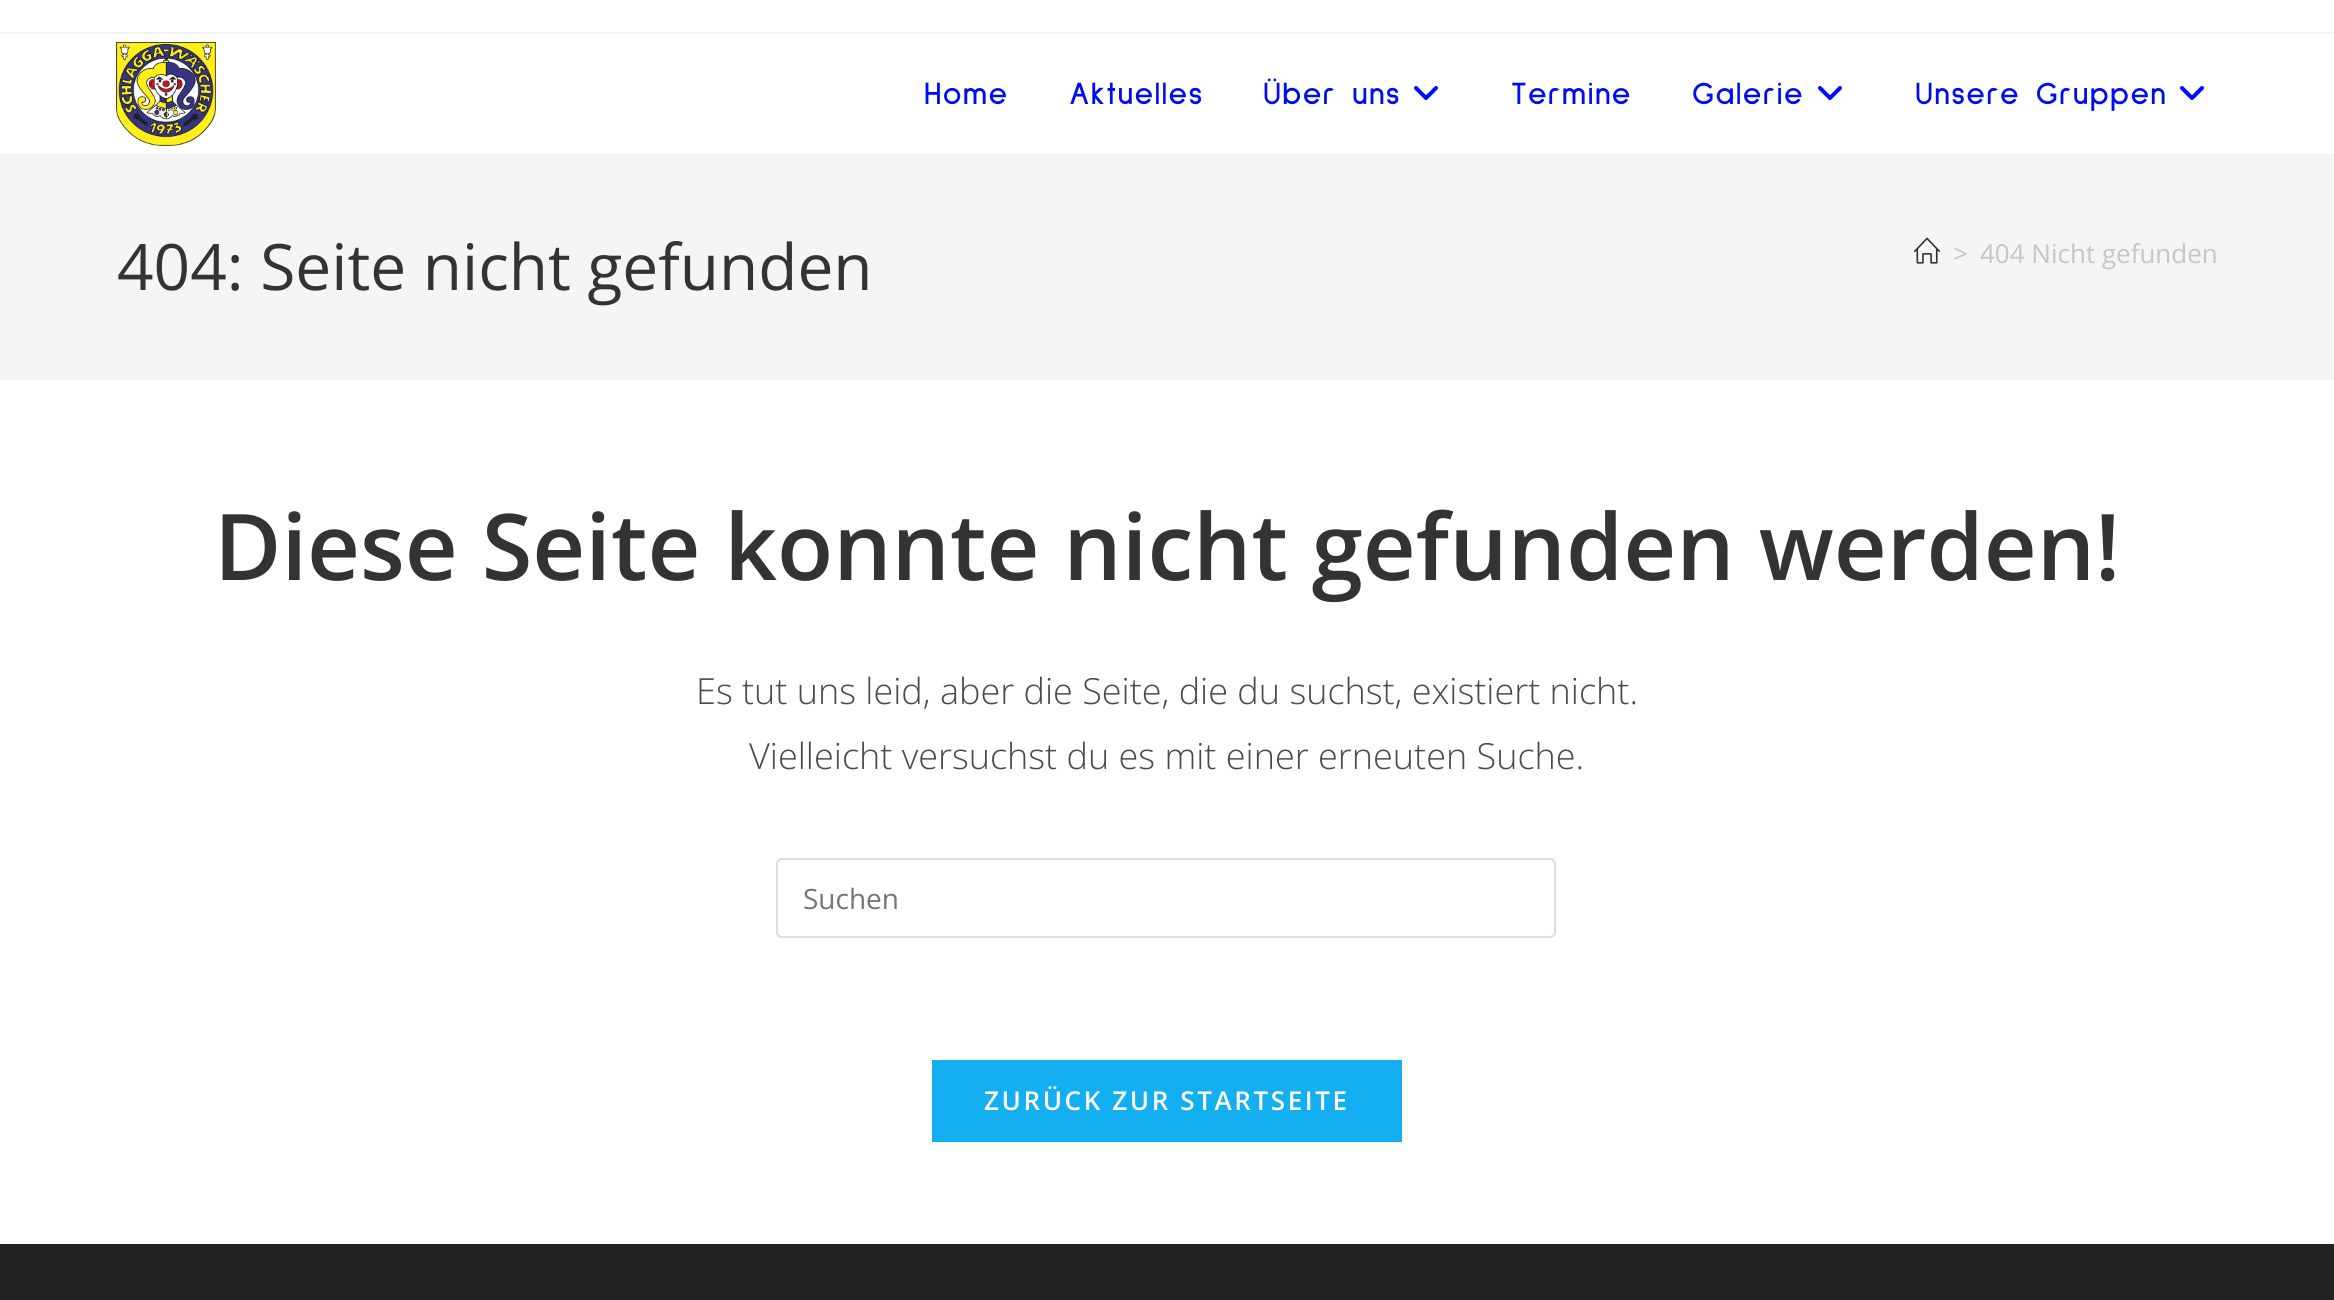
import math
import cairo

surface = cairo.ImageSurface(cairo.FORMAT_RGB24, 2334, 1300)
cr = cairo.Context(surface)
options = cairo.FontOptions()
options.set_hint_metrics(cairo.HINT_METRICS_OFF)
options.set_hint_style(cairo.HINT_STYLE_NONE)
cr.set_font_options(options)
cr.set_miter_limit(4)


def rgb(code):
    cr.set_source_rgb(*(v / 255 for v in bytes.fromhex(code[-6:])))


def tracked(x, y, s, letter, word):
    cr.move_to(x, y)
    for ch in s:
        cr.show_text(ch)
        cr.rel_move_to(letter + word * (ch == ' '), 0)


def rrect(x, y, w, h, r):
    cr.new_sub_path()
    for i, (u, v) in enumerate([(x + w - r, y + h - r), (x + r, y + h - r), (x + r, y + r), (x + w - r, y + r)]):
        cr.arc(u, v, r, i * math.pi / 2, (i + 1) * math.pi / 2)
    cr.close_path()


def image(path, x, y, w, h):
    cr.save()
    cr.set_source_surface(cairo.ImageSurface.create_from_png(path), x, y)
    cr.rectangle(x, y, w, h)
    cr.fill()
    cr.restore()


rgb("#ffffff")
cr.paint()
rgb("#f1f1f1")
cr.rectangle(0, 32, 2334, 2)
cr.fill()
image("img/1.png", 116, 42, 100, 104)
image("img/2.png", 1414, 86, 24, 14)
image("img/2.png", 1818, 86, 24, 14)
image("img/2.png", 2180, 86, 24, 14)
rgb("#f5f5f5")
cr.rectangle(0, 154, 2334, 226)
cr.fill()
image("img/3.png", 1914, 237, 26, 27)
rrect(777, 859, 778, 78, 5)
rgb("#dddddd")
cr.stroke()
rgb("#13aff0")
cr.rectangle(932, 1060, 470, 82)
cr.fill()
rgb("#222222")
cr.rectangle(0, 1244, 2334, 56)
cr.fill()
cr.select_font_face("Sulphur Point", cairo.FONT_SLANT_NORMAL, cairo.FONT_WEIGHT_BOLD)
cr.set_font_size(32)
rgb("#000cf7")
for x, y, s in [
    (924, 104, "Home"),
    (1069, 104, "Aktuelles"),
    (1263, 104, "Über uns"),
    (1511, 104, "Termine"),
    (1692, 104, "Galerie"),
    (1915, 104, "Unsere Gruppen"),
]:
    tracked(x, y, s, 1.25, 0)
cr.select_font_face("Open Sans")
cr.set_font_size(64)
rgb("#333333")
cr.move_to(117, 290)
cr.show_text("404: Seite nicht gefunden")
cr.set_font_size(26)
rgb("#c6c6c6")
cr.move_to(1953, 263)
cr.show_text(">")
cr.move_to(1980, 263)
cr.show_text("404 Nicht gefunden")
cr.select_font_face("Open Sans SemiBold")
cr.set_font_size(92)
rgb("#333333")
cr.move_to(214, 580)
cr.show_text("Diese Seite konnte nicht gefunden werden!")
cr.select_font_face("Open Sans Light")
cr.set_font_size(36)
rgb("#4a4a4a")
cr.move_to(696, 704)
cr.show_text("Es tut uns leid, aber die Seite, die du suchst, existiert nicht.")
cr.move_to(749, 769)
cr.show_text("Vielleicht versuchst du es mit einer erneuten Suche.")
cr.select_font_face("Open Sans")
cr.set_font_size(28)
rgb("#757575")
cr.move_to(803, 909)
cr.show_text("Suchen")
cr.select_font_face("Open Sans SemiBold")
cr.set_font_size(26)
rgb("#ffffff")
tracked(984, 1110, "ZURÜCK ZUR STARTSEITE", 2.6, 0)
surface.write_to_png("page.png")
